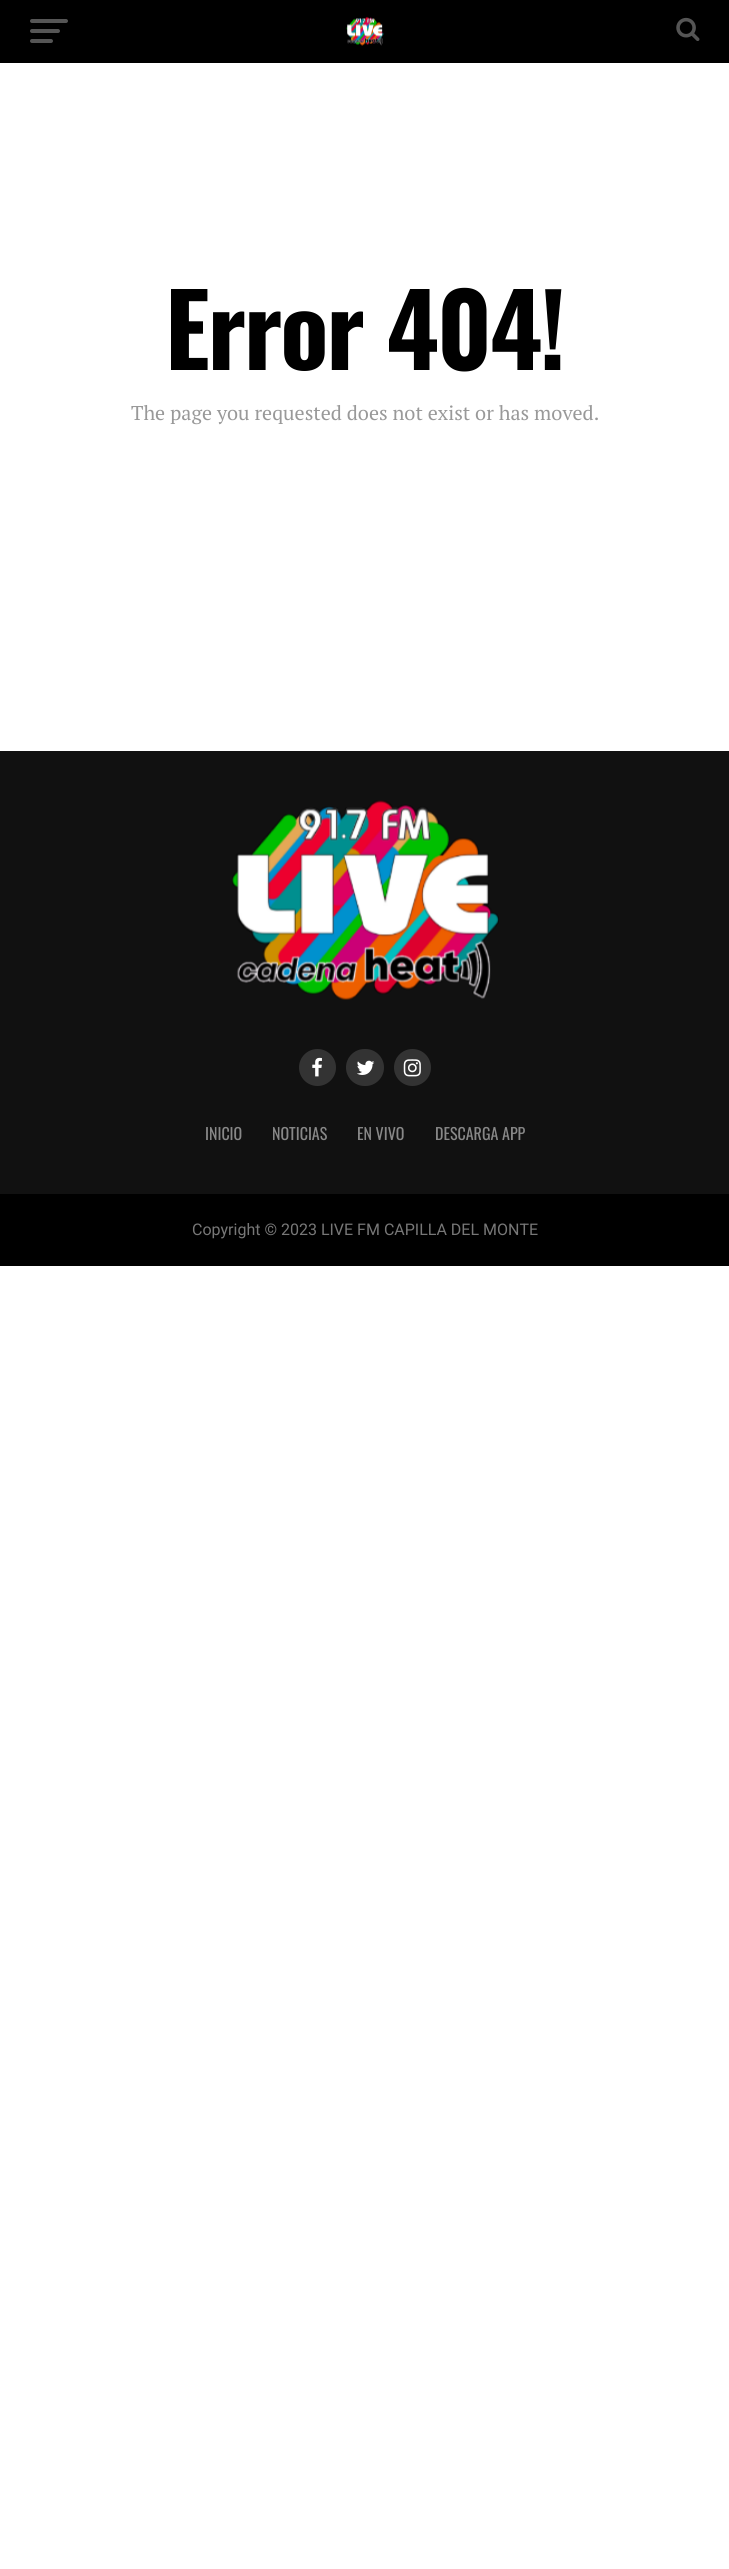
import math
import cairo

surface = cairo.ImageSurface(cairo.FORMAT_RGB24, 729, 2569)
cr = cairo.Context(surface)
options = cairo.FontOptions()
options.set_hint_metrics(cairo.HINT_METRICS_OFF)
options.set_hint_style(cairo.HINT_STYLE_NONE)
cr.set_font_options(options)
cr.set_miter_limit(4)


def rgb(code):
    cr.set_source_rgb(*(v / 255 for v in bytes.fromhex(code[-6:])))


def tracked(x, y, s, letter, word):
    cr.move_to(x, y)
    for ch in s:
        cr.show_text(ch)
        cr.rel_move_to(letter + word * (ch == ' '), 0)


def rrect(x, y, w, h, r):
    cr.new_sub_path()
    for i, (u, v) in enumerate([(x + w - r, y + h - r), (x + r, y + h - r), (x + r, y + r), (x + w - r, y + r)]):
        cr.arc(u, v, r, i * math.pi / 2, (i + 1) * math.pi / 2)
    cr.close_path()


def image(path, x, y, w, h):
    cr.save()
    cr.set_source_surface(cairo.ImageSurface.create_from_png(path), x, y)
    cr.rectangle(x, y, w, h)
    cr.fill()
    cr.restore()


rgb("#ffffff")
cr.paint()
rgb("#000000")
cr.rectangle(0, 0, 729, 63)
cr.fill()
rgb("#555555")
rrect(30, 19, 38, 4, 2)
cr.fill()
rrect(30, 29, 30, 4, 2)
cr.fill()
rrect(30, 39, 23, 4, 2)
cr.fill()
image("img/1.png", 346, 16, 38, 30)
image("img/2.png", 676, 17, 24, 24)
rgb("#111111")
cr.rectangle(0, 751, 729, 443)
cr.fill()
image("img/3.png", 232, 800, 267, 200)
rgb("#333333")
cr.arc(317.5, 1067.5, 18.5, 0, 2 * math.pi)
cr.fill()
image("img/4.png", 312, 1057, 10, 20)
rrect(346, 1049, 38, 37, 18.5)
cr.fill()
image("img/5.png", 357, 1060, 18, 15)
cr.arc(412.5, 1067.5, 18.5, 0, 2 * math.pi)
cr.fill()
image("img/6.png", 403, 1059, 18, 18)
rgb("#000000")
cr.rectangle(0, 1194, 729, 72)
cr.fill()
cr.select_font_face("Oswald", cairo.FONT_SLANT_NORMAL, cairo.FONT_WEIGHT_BOLD)
cr.set_font_size(100)
tracked(165, 370, "Error 404!", -2, 0)
cr.select_font_face("PT Serif")
cr.set_font_size(20)
rgb("#999999")
cr.move_to(131, 420)
cr.show_text("The page you requested does not exist or has moved.")
cr.select_font_face("Oswald")
cr.set_font_size(16)
rgb("#888888")
for x, y, s in [
    (205, 1140, "INICIO"),
    (272, 1140, "NOTICIAS"),
    (357, 1140, "EN VIVO"),
    (435, 1140, "DESCARGA APP"),
]:
    cr.move_to(x, y)
    cr.show_text(s)
cr.select_font_face("Roboto")
rgb("#777777")
cr.move_to(192, 1235)
cr.show_text("Copyright © 2023 LIVE FM CAPILLA DEL MONTE")
surface.write_to_png("page.png")
